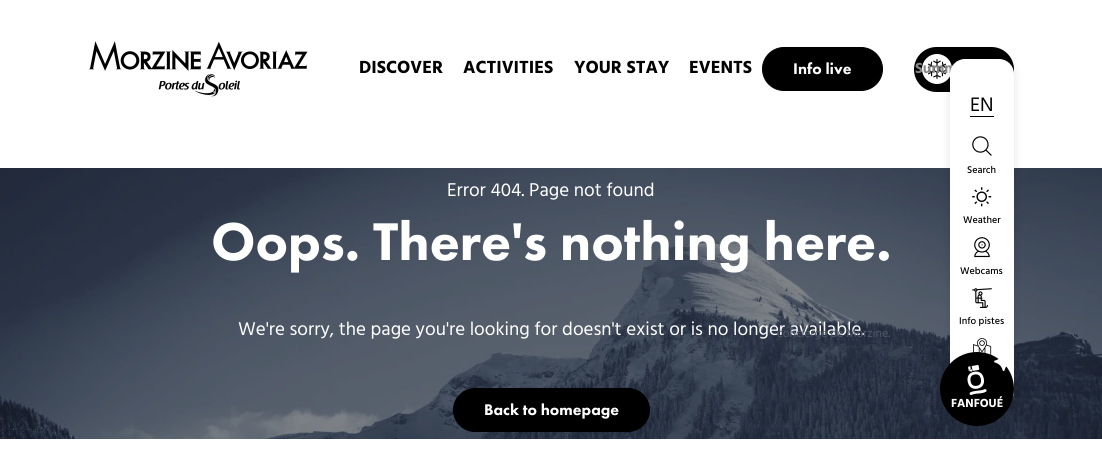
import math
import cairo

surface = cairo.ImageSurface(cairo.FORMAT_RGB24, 1102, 466)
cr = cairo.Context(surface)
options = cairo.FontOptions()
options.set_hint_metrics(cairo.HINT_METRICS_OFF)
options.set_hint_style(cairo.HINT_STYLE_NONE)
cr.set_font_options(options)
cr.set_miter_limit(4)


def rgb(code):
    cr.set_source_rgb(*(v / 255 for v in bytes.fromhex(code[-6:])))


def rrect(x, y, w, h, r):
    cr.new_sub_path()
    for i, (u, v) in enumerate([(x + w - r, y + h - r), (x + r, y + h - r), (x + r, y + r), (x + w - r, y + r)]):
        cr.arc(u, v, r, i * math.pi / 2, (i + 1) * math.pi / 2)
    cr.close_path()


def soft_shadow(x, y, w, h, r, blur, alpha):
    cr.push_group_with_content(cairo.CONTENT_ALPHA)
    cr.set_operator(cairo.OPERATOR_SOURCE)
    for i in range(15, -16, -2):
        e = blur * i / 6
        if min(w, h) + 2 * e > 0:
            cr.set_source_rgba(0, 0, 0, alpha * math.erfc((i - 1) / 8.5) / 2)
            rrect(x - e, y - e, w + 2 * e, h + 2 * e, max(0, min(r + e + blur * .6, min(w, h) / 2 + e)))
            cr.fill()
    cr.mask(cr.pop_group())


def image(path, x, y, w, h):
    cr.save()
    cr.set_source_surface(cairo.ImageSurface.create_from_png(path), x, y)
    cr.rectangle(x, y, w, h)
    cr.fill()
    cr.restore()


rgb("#ffffff")
cr.paint()
image("img/1.png", 89, 41, 219, 56)
rgb("#000000")
rrect(762.5, 47.5, 120, 43, 21.5)
cr.fill_preserve()
cr.set_line_width(1)
cr.stroke()
rrect(914, 47, 100, 45, 22.5)
cr.fill()
rgb("#ffffff")
cr.arc(937, 69, 15, 0, 2 * math.pi)
cr.fill()
image("img/2.png", 927, 59, 20, 20)
image("img/3.png", 0, 168, 1102, 271)
rgb("#000000")
rrect(453.5, 388.5, 196, 43, 21.5)
cr.fill_preserve()
cr.stroke()
rgb("#000000")
soft_shadow(950, 59, 64, 348, 15, 5, 0.1)
cr.select_font_face("Hind", cairo.FONT_SLANT_NORMAL, cairo.FONT_WEIGHT_BOLD)
cr.set_font_size(18)
rgb("#000000")
for x, y, s in [
    (359, 73, "DISCOVER"),
    (463, 73, "ACTIVITIES"),
    (574, 73, "YOUR STAY"),
    (689, 73, "EVENTS"),
]:
    cr.move_to(x, y)
    cr.show_text(s)
cr.select_font_face("Futura PT Black")
cr.set_font_size(16)
rgb("#ffffff")
cr.move_to(793, 74)
cr.show_text("Info live")
cr.select_font_face("Hind", cairo.FONT_SLANT_NORMAL, cairo.FONT_WEIGHT_BOLD)
cr.set_font_size(15)
rgb("#868686")
cr.move_to(915, 73)
cr.show_text("Summ")
cr.select_font_face("Hind")
cr.set_font_size(19)
rgb("#ffffff")
cr.move_to(447, 196)
cr.show_text("Error 404. Page not found")
cr.select_font_face("Futura PT Black")
cr.set_font_size(55)
cr.move_to(211, 260)
cr.show_text("Oops. There's nothing here.")
cr.select_font_face("Hind")
cr.set_font_size(19)
cr.move_to(238, 335)
cr.show_text("We're sorry, the page you're looking for doesn't exist or is no longer available.")
cr.select_font_face("Futura PT Black")
cr.set_font_size(16)
cr.move_to(484, 415)
cr.show_text("Back to homepage")
rrect(950, 59, 64, 348, 15)
cr.fill()
cr.select_font_face("Hind")
cr.set_font_size(20)
rgb("#000000")
cr.move_to(970, 111)
cr.show_text("EN")
cr.rectangle(970, 116, 24, 1)
cr.fill()
image("img/4.png", 972, 136, 20, 20)
cr.select_font_face("Hind Medium")
cr.set_font_size(10)
cr.move_to(967, 173)
cr.show_text("Search")
image("img/5.png", 972, 187, 20, 20)
cr.move_to(963, 223)
cr.show_text("Weather")
image("img/6.png", 974, 237, 16, 21)
cr.move_to(960, 274)
cr.show_text("Webcams")
image("img/7.png", 972, 288, 20, 20)
cr.move_to(959, 324)
cr.show_text("Info pistes")
image("img/8.png", 973, 338, 19, 18)
cr.select_font_face("Hind")
cr.set_font_size(12)
rgb("#515967")
cr.move_to(777, 337)
cr.show_text("concierge de Morzine.")
rgb("#000000")
cr.new_path()
cr.arc(977, 389, 37, 0, 2 * math.pi)
cr.fill()
image("img/9.png", 967, 365, 20, 30)
image("img/10.png", 994, 359, 13, 12)
cr.select_font_face("Hind", cairo.FONT_SLANT_NORMAL, cairo.FONT_WEIGHT_BOLD)
rgb("#ffffff")
cr.move_to(951, 407)
cr.show_text("FANFOUÉ")
surface.write_to_png("page.png")
